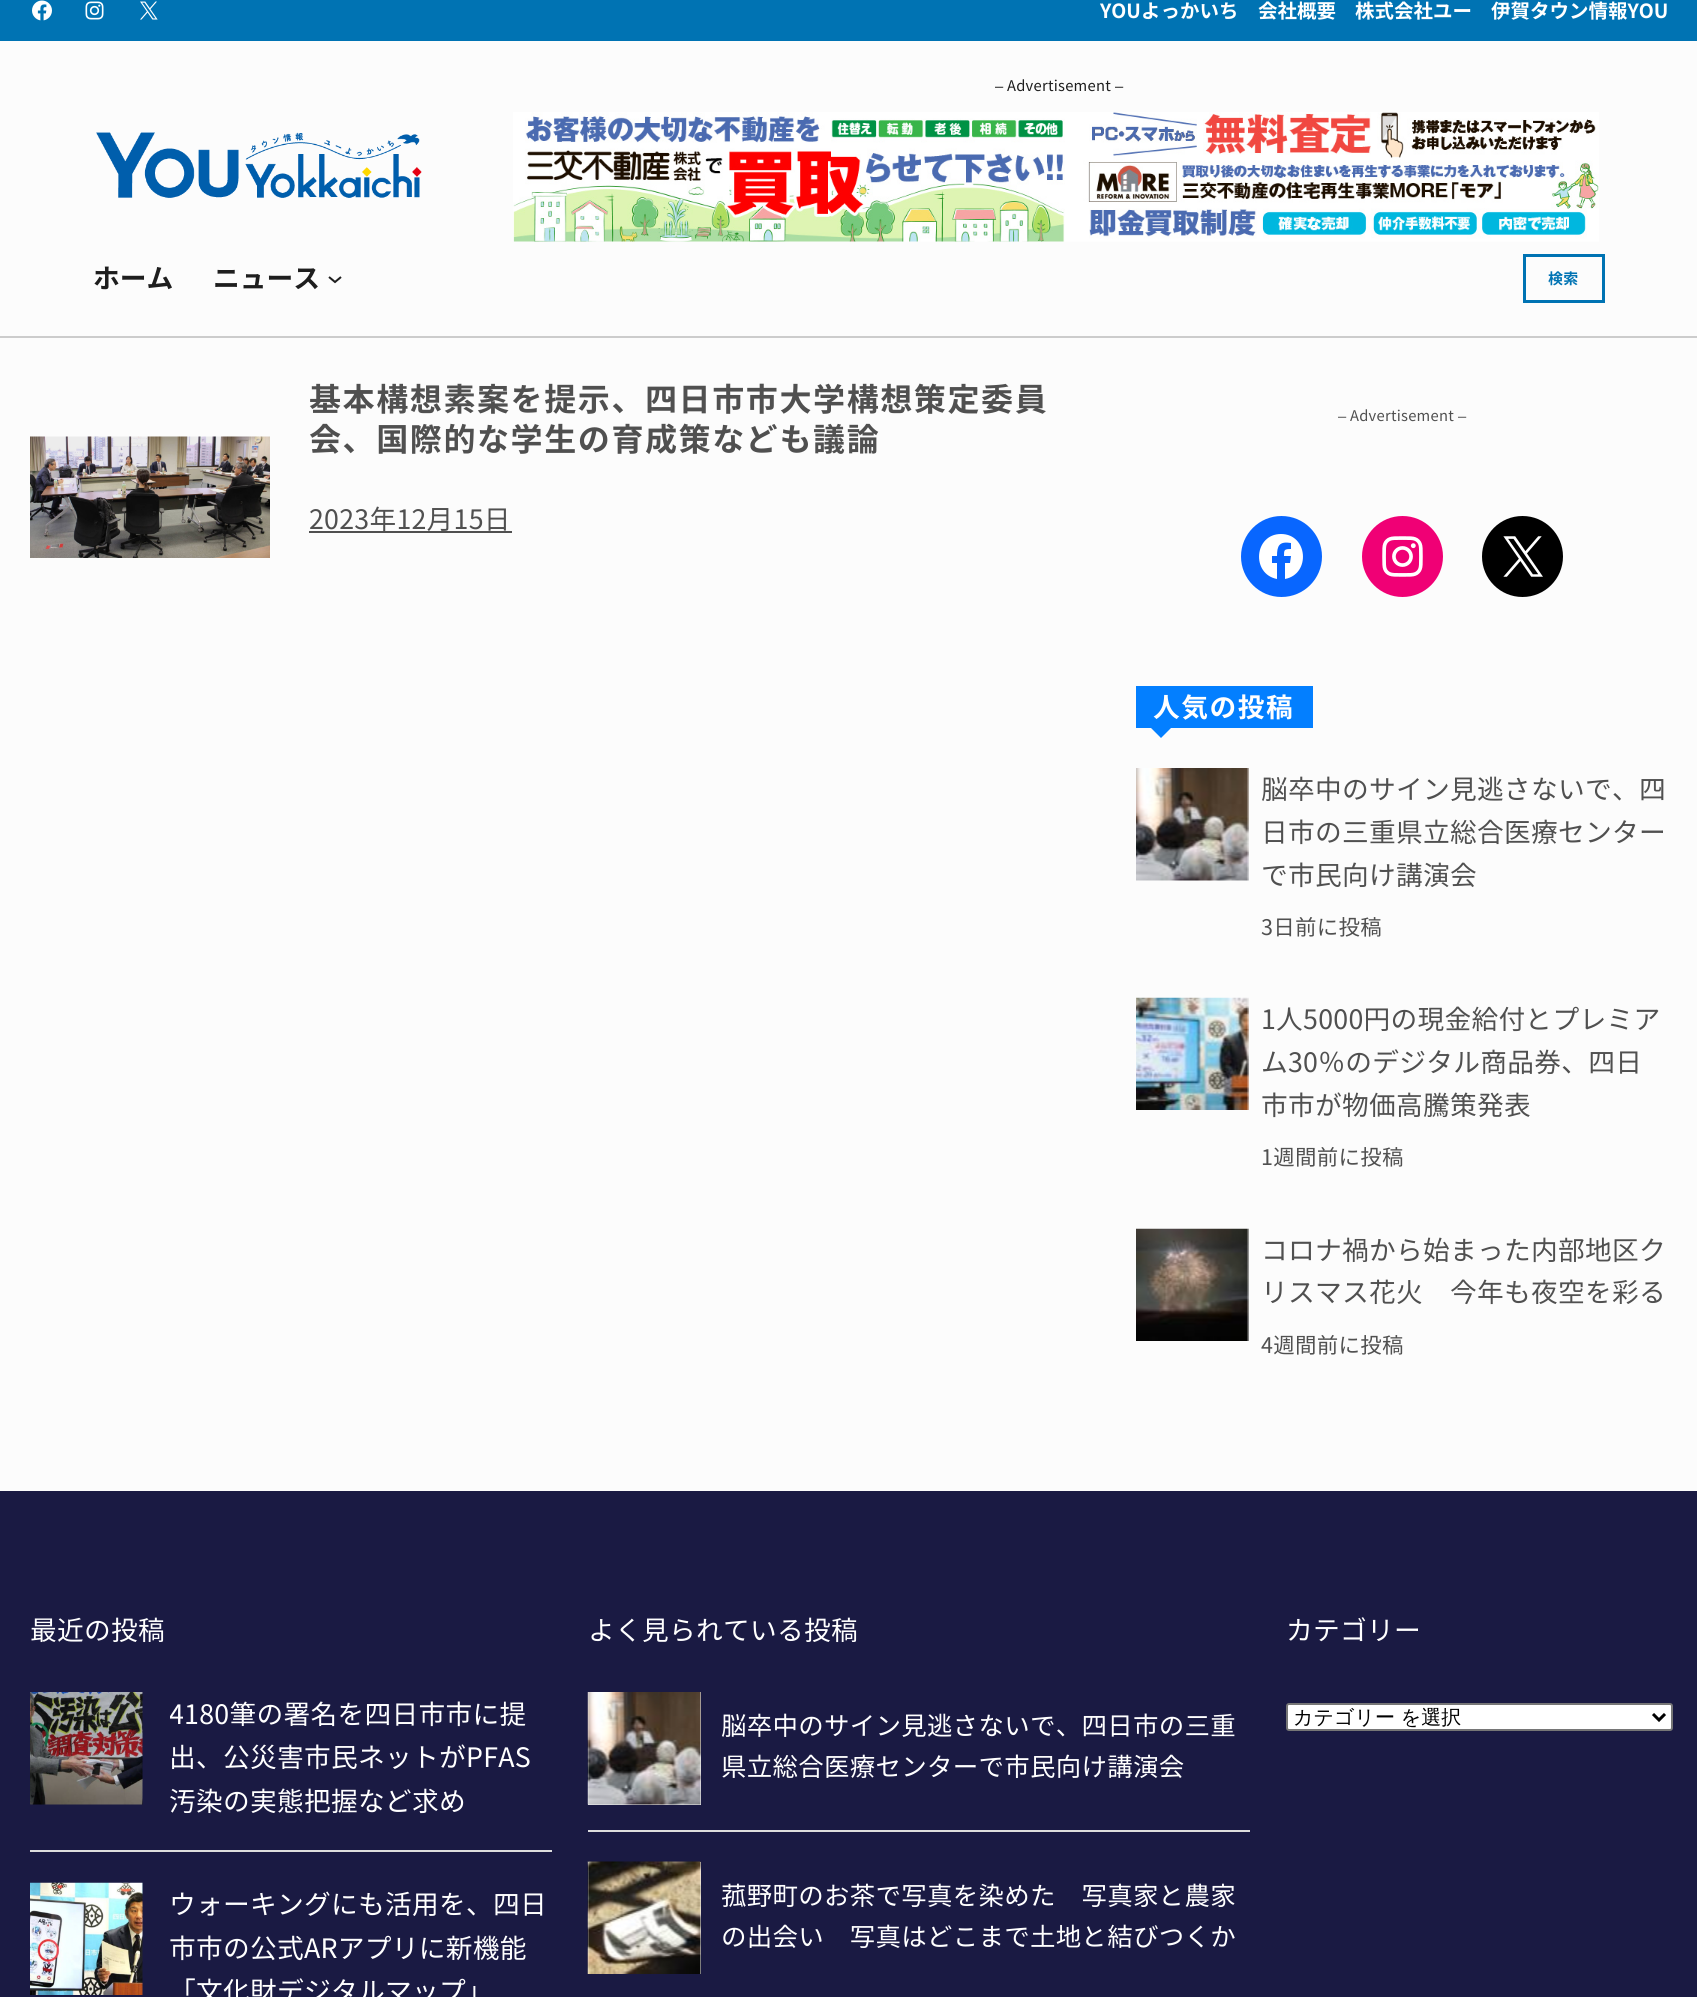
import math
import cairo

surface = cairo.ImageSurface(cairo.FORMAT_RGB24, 1697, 1997)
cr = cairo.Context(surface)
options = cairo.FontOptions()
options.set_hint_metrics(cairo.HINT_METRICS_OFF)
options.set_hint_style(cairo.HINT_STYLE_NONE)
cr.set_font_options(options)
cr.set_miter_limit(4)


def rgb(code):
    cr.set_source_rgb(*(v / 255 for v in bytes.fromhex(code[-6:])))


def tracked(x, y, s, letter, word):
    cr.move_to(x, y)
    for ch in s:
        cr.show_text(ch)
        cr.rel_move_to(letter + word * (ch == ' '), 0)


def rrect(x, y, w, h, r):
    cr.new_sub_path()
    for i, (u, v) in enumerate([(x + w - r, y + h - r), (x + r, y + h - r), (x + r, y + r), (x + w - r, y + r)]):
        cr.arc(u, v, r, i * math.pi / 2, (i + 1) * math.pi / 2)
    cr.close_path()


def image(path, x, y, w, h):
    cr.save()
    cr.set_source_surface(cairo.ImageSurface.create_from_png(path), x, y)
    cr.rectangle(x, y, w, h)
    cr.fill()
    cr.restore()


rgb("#fcfcfc")
cr.paint()
rgb("#0073b3")
cr.rectangle(0, 0, 1697, 41)
cr.fill()
image("img/1.png", 32, 0, 20, 21)
image("img/2.png", 85, 1, 19, 19)
image("img/3.png", 140, 1, 18, 19)
rgb("#cccccc")
cr.rectangle(0, 336, 1697, 2)
cr.fill()
image("img/4.png", 513, 112, 1086, 130)
image("img/5.png", 96, 132, 326, 66)
cr.new_path()
cr.move_to(329, 277)
cr.line_to(335, 282)
cr.line_to(341, 277)
rgb("#1e1e1e")
cr.stroke()
cr.rectangle(1524.5, 255.5, 79, 46)
rgb("#0073b3")
cr.set_line_width(3)
cr.stroke()
image("img/6.png", 30, 436, 240, 122)
rgb("#505050")
cr.rectangle(309, 531, 203, 2)
cr.fill()
rgb("#0866ff")
cr.arc(1281.5, 556.5, 40.5, 0, 2 * math.pi)
cr.fill()
rgb("#ffffff")
cr.new_path()
cr.move_to(1281, 534)
cr.curve_to(1254, 534, 1251, 574, 1277, 579)
cr.line_to(1277, 563)
cr.line_to(1272, 563)
cr.line_to(1272, 556)
cr.line_to(1277, 556)
cr.curve_to(1277, 546, 1279, 541, 1291, 543)
cr.line_to(1291, 549)
cr.curve_to(1284, 549, 1284, 550, 1284, 556)
cr.line_to(1291, 556)
cr.line_to(1290, 563)
cr.line_to(1285, 563)
cr.line_to(1285, 579)
cr.curve_to(1311, 574, 1308, 534, 1281, 534)
cr.close_path()
cr.fill()
rgb("#f00075")
cr.arc(1402.5, 556.5, 40.5, 0, 2 * math.pi)
cr.fill()
image("img/7.png", 1382, 536, 41, 41)
rgb("#000000")
cr.arc(1522.5, 556.5, 40.5, 0, 2 * math.pi)
cr.fill()
image("img/8.png", 1503, 536, 40, 41)
rgb("#037fff")
cr.rectangle(1136, 686, 177, 42)
cr.fill()
cr.new_path()
cr.move_to(1150.5, 727.5)
cr.line_to(1171.5, 727.5)
cr.line_to(1161, 738)
cr.close_path()
cr.fill()
image("img/9.png", 1136, 768, 113, 113)
image("img/10.png", 1136, 997, 113, 113)
image("img/11.png", 1136, 1228, 113, 113)
rgb("#1a1a43")
cr.rectangle(0, 1491, 1697, 506)
cr.fill()
rgb("#dddddd")
cr.rectangle(30, 1850, 522, 2)
cr.fill()
image("img/12.png", 30, 1692, 113, 113)
image("img/13.png", 30, 1882, 113, 113)
cr.rectangle(588, 1830, 662, 2)
cr.fill()
rgb("#f0f0f0")
cr.rectangle(588, 1692, 113, 113)
cr.fill()
image("img/14.png", 587, 1692, 114, 113)
cr.rectangle(588, 1862, 113, 112)
cr.fill()
image("img/15.png", 587, 1861, 114, 113)
rgb("#ffffff")
rrect(1287, 1704, 385, 26, 2)
cr.fill_preserve()
rgb("#767676")
cr.set_line_width(2)
cr.stroke()
cr.new_path()
cr.move_to(1653, 1714)
cr.line_to(1659, 1720)
cr.line_to(1665, 1714)
rgb("#000000")
cr.set_line_width(3)
cr.stroke()
cr.select_font_face("Noto Sans CJK JP", cairo.FONT_SLANT_NORMAL, cairo.FONT_WEIGHT_BOLD)
cr.set_font_size(19.5)
rgb("#ffffff")
for x, y, s in [
    (1100, 18, "YOUよっかいち"),
    (1258, 18, "会社概要"),
    (1355, 18, "株式会社ユー"),
    (1491, 18, "伊賀タウン情報YOU"),
]:
    cr.move_to(x, y)
    cr.show_text(s)
cr.select_font_face("Liberation Sans")
cr.set_font_size(14.75)
rgb("#1e1e1e")
tracked(995, 91, "–", 0.25, 0)
cr.select_font_face("Noto Sans CJK JP")
tracked(1007, 91, "Advertisement", 0.25, 0)
cr.select_font_face("Liberation Sans")
tracked(1115, 91, "–", 0.25, 0)
cr.select_font_face("Noto Sans CJK JP", cairo.FONT_SLANT_NORMAL, cairo.FONT_WEIGHT_BOLD)
cr.set_font_size(26.75)
cr.move_to(93, 288)
cr.show_text("ホーム")
cr.move_to(213, 288)
cr.show_text("ニュース")
cr.set_font_size(15)
rgb("#0073b3")
tracked(1548, 284, "検索", 0.25, 0)
cr.set_font_size(32.1)
rgb("#505050")
tracked(309, 411, "基本構想素案を提示、四日市市大学構想策定委員", 1.5, 0)
tracked(309, 451, "会、国際的な学生の育成策なども議論", 1.5, 0)
cr.select_font_face("Noto Sans CJK JP")
cr.set_font_size(26.75)
tracked(309, 529, "2023年12月15日", 0.25, 0)
cr.select_font_face("Liberation Sans")
cr.set_font_size(14.75)
tracked(1338, 421, "–", 0.25, 0)
cr.select_font_face("Noto Sans CJK JP")
tracked(1350, 421, "Advertisement", 0.25, 0)
cr.select_font_face("Liberation Sans")
tracked(1458, 421, "–", 0.25, 0)
cr.select_font_face("Noto Sans CJK JP", cairo.FONT_SLANT_NORMAL, cairo.FONT_WEIGHT_BOLD)
cr.set_font_size(26.75)
rgb("#ffffff")
tracked(1153, 717, "人気の投稿", 1.5, 0)
cr.select_font_face("Noto Sans CJK JP")
rgb("#505050")
for x, y, s in [
    (1261, 799, "脳卒中のサイン見逃さないで、四"),
    (1261, 842, "日市の三重県立総合医療センター"),
    (1261, 885, "で市民向け講演会"),
]:
    tracked(x, y, s, 0.25, 0)
cr.set_font_size(21.5)
tracked(1261, 935, "3日前に投稿", 0.25, 0)
cr.set_font_size(26.75)
for x, y, s in [
    (1261, 1029, "1人5000円の現金給付とプレミア"),
    (1261, 1072, "ム30％のデジタル商品券、四日"),
    (1261, 1115, "市市が物価高騰策発表"),
]:
    tracked(x, y, s, 0.25, 0)
cr.set_font_size(21.5)
tracked(1261, 1165, "1週間前に投稿", 0.25, 0)
cr.set_font_size(26.75)
tracked(1261, 1260, "コロナ禍から始まった内部地区ク", 0.25, 0)
tracked(1261, 1302, "リスマス花火　今年も夜空を彩る", 0.25, 0)
cr.set_font_size(21.5)
tracked(1261, 1353, "4週間前に投稿", 0.25, 0)
cr.set_font_size(26.75)
rgb("#ffffff")
tracked(30, 1640, "最近の投稿", 0.25, 0)
cr.save()
cr.rectangle(170, 1692, 382, 131)
cr.clip()
tracked(169, 1724, "4180筆の署名を四日市市に提", 0.25, 0)
cr.restore()
for x, y, s in [
    (169, 1767, "出、公災害市民ネットがPFAS"),
    (169, 1811, "汚染の実態把握など求め"),
    (169, 1914, "ウォーキングにも活用を、四日"),
    (169, 1958, "市市の公式ARアプリに新機能"),
    (169, 2001, "「文化財デジタルマップ」"),
    (588, 1640, "よく見られている投稿"),
]:
    tracked(x, y, s, 0.25, 0)
cr.set_font_size(25.5)
for x, y, s in [
    (721, 1735, "脳卒中のサイン見逃さないで、四日市の三重"),
    (721, 1776, "県立総合医療センターで市民向け講演会"),
    (721, 1905, "菰野町のお茶で写真を染めた　写真家と農家"),
    (721, 1946, "の出会い　写真はどこまで土地と結びつくか"),
]:
    tracked(x, y, s, 0.25, 0)
cr.set_font_size(26.75)
tracked(1286, 1640, "カテゴリー", 0.25, 0)
cr.select_font_face("WenQuanYi Zen Hei Medium")
cr.set_font_size(20)
rgb("#000000")
cr.move_to(1293, 1724)
cr.show_text("カテゴリー を選択")
surface.write_to_png("page.png")
